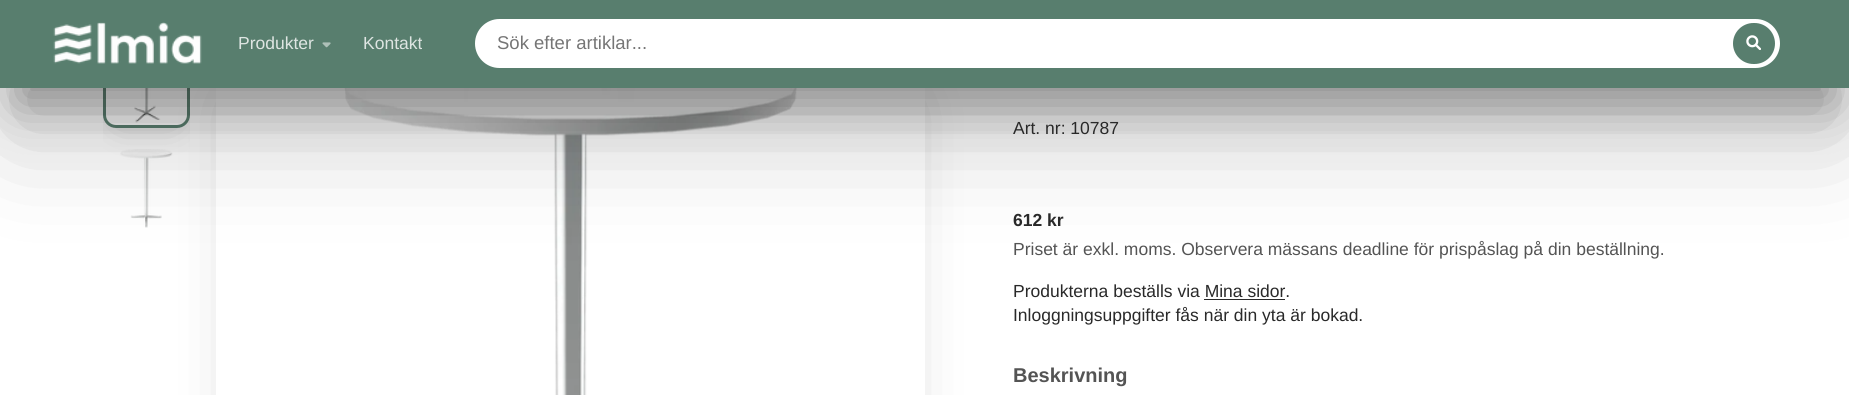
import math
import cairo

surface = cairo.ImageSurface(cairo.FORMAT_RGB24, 1849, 395)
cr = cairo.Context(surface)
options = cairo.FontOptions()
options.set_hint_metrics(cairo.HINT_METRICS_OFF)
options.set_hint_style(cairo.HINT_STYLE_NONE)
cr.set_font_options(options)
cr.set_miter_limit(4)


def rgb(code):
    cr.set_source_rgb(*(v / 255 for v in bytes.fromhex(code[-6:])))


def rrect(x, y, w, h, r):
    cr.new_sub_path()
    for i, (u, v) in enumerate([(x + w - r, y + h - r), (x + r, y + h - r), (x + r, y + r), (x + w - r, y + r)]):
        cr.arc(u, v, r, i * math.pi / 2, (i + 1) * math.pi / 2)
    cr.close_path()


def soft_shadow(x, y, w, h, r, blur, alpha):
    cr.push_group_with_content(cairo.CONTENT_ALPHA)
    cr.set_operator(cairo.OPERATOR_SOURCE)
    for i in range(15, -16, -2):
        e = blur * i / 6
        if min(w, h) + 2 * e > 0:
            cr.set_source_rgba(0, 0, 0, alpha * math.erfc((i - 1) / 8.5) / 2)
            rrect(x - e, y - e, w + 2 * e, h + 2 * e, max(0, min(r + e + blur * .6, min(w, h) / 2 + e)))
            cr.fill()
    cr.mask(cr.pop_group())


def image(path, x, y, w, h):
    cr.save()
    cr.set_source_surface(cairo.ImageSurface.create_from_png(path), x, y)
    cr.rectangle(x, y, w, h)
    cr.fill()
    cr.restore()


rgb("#ffffff")
cr.paint()
cr.save()
cr.rectangle(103, 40, 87, 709)
cr.clip()
cr.set_fill_rule(cairo.FILL_RULE_EVEN_ODD)
cr.new_path()
cr.move_to(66, 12)
cr.line_to(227, 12)
cr.line_to(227, 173)
cr.line_to(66, 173)
cr.close_path()
cr.move_to(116, 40)
cr.line_to(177, 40)
cr.curve_to(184, 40, 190, 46, 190, 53)
cr.line_to(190, 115)
cr.curve_to(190, 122, 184, 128, 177, 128)
cr.line_to(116, 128)
cr.curve_to(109, 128, 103, 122, 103, 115)
cr.line_to(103, 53)
cr.curve_to(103, 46, 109, 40, 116, 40)
cr.close_path()
cr.clip()
rgb("#1c1c1c")
soft_shadow(120, 66, 53, 53, 0, 17.5, 0.3)
cr.restore()
rrect(104.5, 41.5, 84, 85, 11.5)
rgb("#587e6e")
cr.set_line_width(3)
cr.stroke()
image("img/4.png", 134, 88, 27, 35)
image("img/5.png", 120, 149, 53, 79)
cr.save()
cr.set_fill_rule(cairo.FILL_RULE_EVEN_ODD)
cr.new_path()
cr.move_to(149, 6)
cr.line_to(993, 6)
cr.line_to(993, 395)
cr.line_to(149, 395)
cr.close_path()
cr.move_to(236, 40)
cr.line_to(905, 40)
cr.curve_to(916, 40, 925, 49, 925, 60)
cr.line_to(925, 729)
cr.curve_to(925, 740, 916, 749, 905, 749)
cr.line_to(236, 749)
cr.curve_to(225, 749, 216, 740, 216, 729)
cr.line_to(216, 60)
cr.curve_to(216, 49, 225, 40, 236, 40)
cr.close_path()
cr.clip()
rgb("#1c1c1c")
soft_shadow(249, 106, 644, 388, 0, 33, 0.3)
cr.restore()
image("img/6.png", 344, 88, 453, 307)
rgb("#1c1c1c")
soft_shadow(18, 50, 1815, 53, 0, 24, 0.4)
soft_shadow(18, 73, 1815, 52, 0, 54.5, 0.3)
rgb("#587e6e")
cr.rectangle(0, 0, 1849, 88)
cr.fill()
image("img/1.png", 53, 22, 149, 42)
image("img/2.png", 322, 42, 9, 6)
rgb("#ffffff")
rrect(475, 19, 1305, 49, 24.5)
cr.fill()
rgb("#587e6e")
rrect(1733, 23, 42, 41, 20.5)
cr.fill()
image("img/3.png", 1746, 35, 15, 15)
rgb("#292929")
cr.rectangle(1204, 299, 81, 1)
cr.fill()
cr.select_font_face("Liberation Sans")
cr.set_font_size(17.5)
rgb("#dee5e2")
cr.move_to(238, 49)
cr.show_text("Produkter")
cr.move_to(363, 49)
cr.show_text("Kontakt")
cr.set_font_size(18.5)
rgb("#757575")
cr.move_to(497, 49)
cr.show_text("Sök efter artiklar...")
cr.set_font_size(17.5)
rgb("#292929")
cr.move_to(1013, 134)
cr.show_text("Art. nr: 10787")
cr.select_font_face("Liberation Sans", cairo.FONT_SLANT_NORMAL, cairo.FONT_WEIGHT_BOLD)
cr.move_to(1013, 226)
cr.show_text("612 kr")
cr.select_font_face("Liberation Sans")
rgb("#545454")
cr.move_to(1013, 255)
cr.show_text("Priset är exkl. moms. Observera mässans deadline för prispåslag på din beställning.")
rgb("#292929")
cr.move_to(1013, 297)
cr.show_text("Produkterna beställs via Mina sidor.")
cr.move_to(1013, 321)
cr.show_text("Inloggningsuppgifter fås när din yta är bokad.")
cr.select_font_face("Liberation Sans", cairo.FONT_SLANT_NORMAL, cairo.FONT_WEIGHT_BOLD)
cr.set_font_size(20)
rgb("#545454")
cr.move_to(1013, 382)
cr.show_text("Beskrivning")
surface.write_to_png("page.png")
